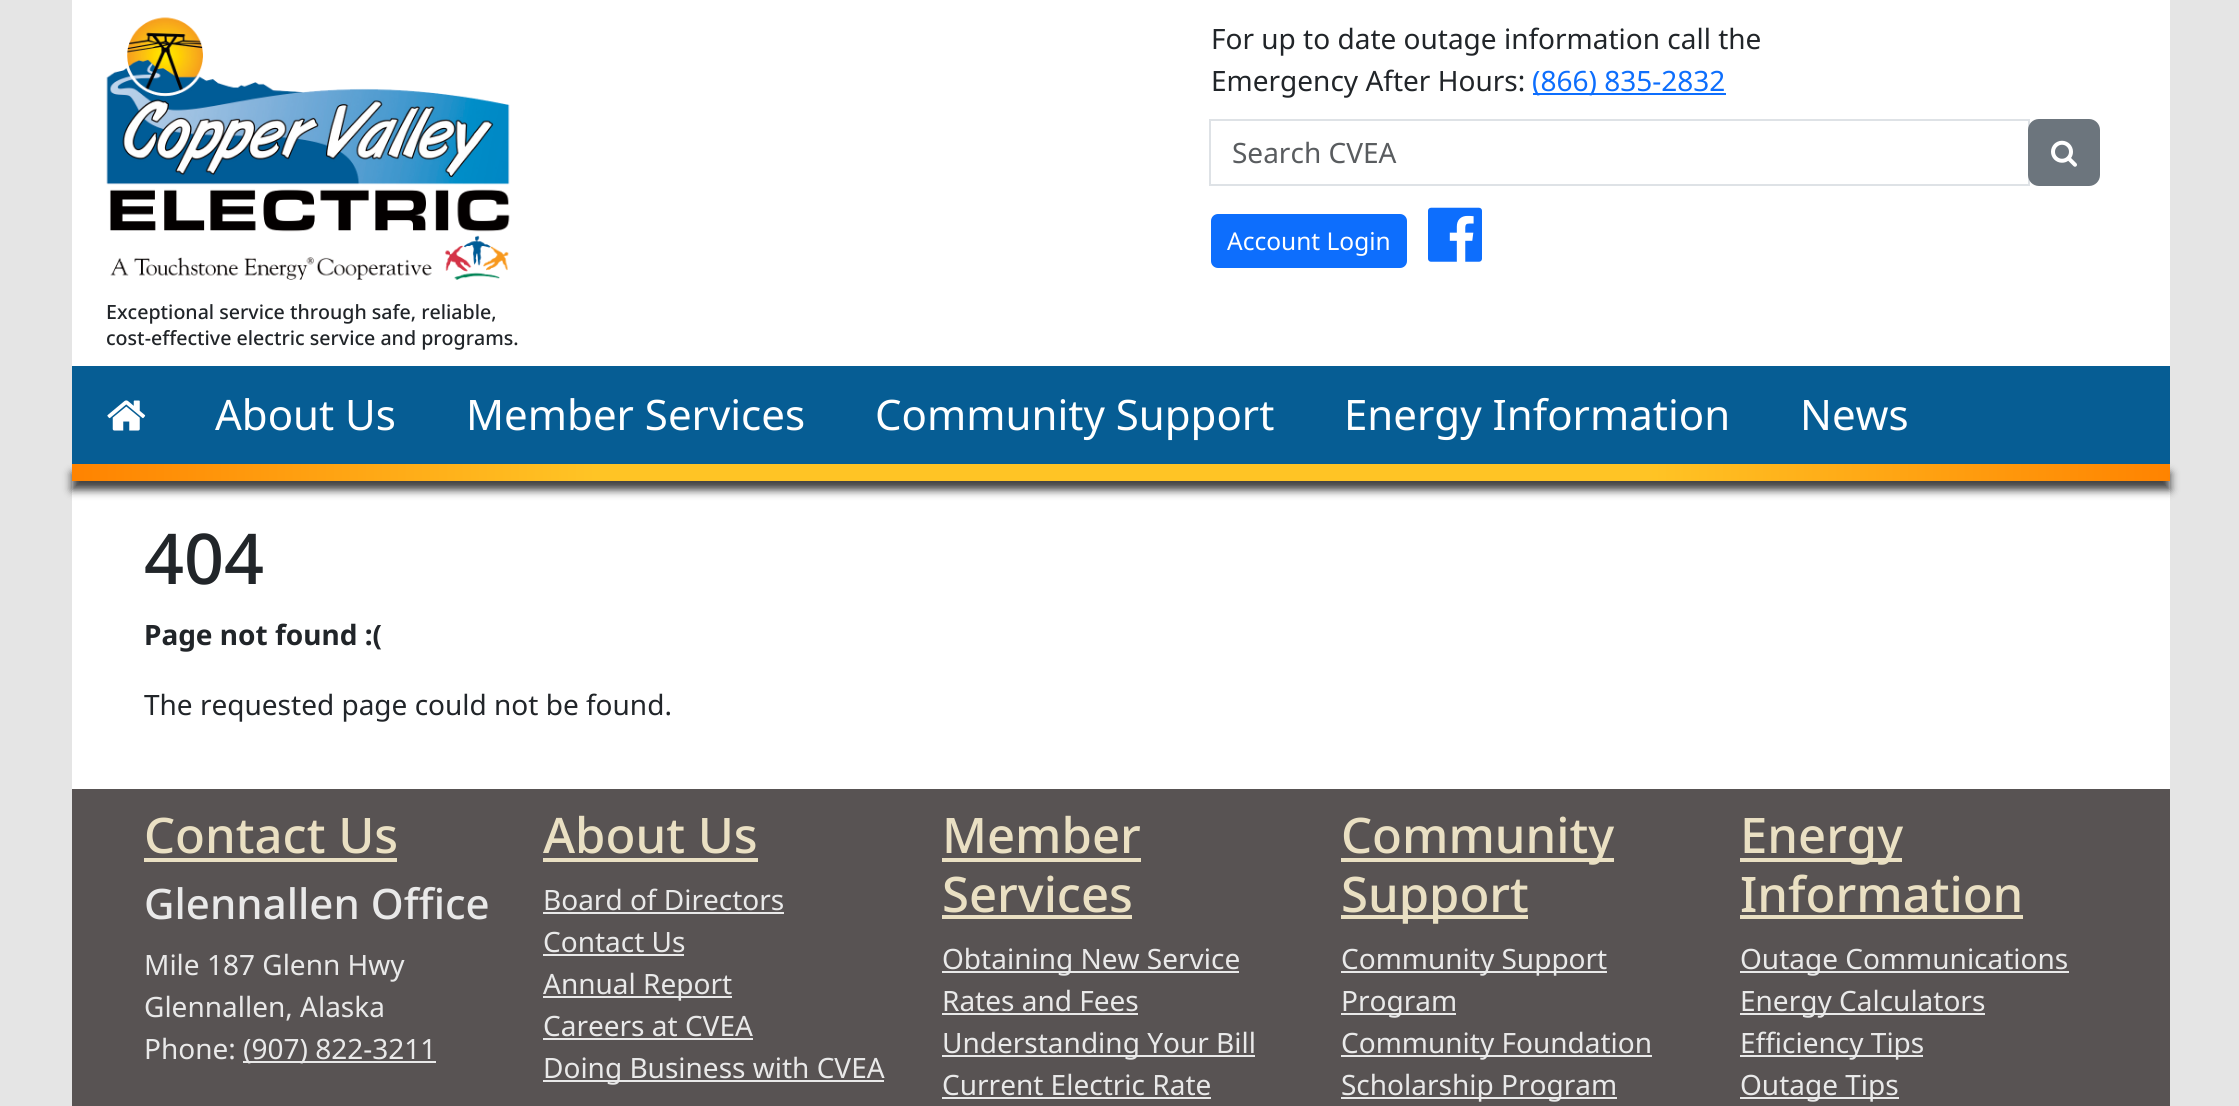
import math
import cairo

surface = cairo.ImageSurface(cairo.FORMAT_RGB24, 2239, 1106)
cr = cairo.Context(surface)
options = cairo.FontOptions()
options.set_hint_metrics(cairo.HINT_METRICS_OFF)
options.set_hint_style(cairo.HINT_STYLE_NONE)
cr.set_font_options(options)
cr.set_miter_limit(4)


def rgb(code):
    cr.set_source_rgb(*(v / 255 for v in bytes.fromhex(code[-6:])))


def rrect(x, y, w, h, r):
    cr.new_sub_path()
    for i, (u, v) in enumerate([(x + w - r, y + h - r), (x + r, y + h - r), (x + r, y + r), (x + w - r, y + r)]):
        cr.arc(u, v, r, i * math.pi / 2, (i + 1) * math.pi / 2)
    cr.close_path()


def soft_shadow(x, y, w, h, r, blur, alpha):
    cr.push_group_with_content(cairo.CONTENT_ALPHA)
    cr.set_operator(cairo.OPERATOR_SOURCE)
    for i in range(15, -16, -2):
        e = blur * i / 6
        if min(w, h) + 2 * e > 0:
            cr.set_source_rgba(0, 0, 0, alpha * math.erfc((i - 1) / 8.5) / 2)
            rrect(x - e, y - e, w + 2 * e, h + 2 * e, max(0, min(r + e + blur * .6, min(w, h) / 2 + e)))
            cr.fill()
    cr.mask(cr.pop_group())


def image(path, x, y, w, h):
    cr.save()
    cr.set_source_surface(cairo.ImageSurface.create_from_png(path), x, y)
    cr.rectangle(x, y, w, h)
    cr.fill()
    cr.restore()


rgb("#e5e5e5")
cr.paint()
rgb("#ffffff")
cr.rectangle(72, 0, 2098, 789)
cr.fill()
rgb("#0d6efd")
cr.rectangle(1533, 93, 193, 2)
cr.fill()
cr.rectangle(1210, 120, 819, 65)
rgb("#dee2e6")
cr.stroke()
rgb("#6c757d")
rrect(2029, 120, 70, 65, 10)
cr.fill_preserve()
cr.stroke()
image("img/1.png", 2051, 140, 26, 27)
rgb("#0d6efd")
rrect(1212, 215, 194, 52, 6)
cr.fill_preserve()
cr.stroke()
image("img/2.png", 1428, 207, 54, 55)
image("img/3.png", 106, 17, 404, 263)
rgb("#000000")
soft_shadow(72, 473, 2098, 17, 0, 4.5, 0.75)
rgb("#065d94")
cr.rectangle(72, 366, 2098, 98)
cr.fill()
image("img/4.png", 107, 400, 39, 31)
gradient = cairo.LinearGradient(72, 473, 2170, 472)
gradient.add_color_stop_rgba(0, 1, 0.514, 0, 1)
gradient.add_color_stop_rgba(0.25, 1, 0.769, 0.145, 1)
gradient.add_color_stop_rgba(0.75, 1, 0.769, 0.145, 1)
gradient.add_color_stop_rgba(1, 1, 0.514, 0, 1)
cr.set_source(gradient)
cr.rectangle(72, 464, 2098, 17)
cr.fill()
for x, y, w, h, color in [
    (72, 789, 2098, 317, "#585353"),
    (144, 858, 253, 4, "#eae0c3"),
    (243, 1061, 193, 2, "#e9e9e9"),
    (543, 858, 215, 4, "#eae0c3"),
    (543, 912, 241, 2, "#e9e9e9"),
    (543, 954, 141, 2, "#e9e9e9"),
    (543, 996, 189, 2, "#e9e9e9"),
    (543, 1038, 210, 2, "#e9e9e9"),
    (543, 1080, 341, 2, "#e9e9e9"),
    (942, 858, 199, 4, "#eae0c3"),
    (942, 915, 190, 4, "#eae0c3"),
    (942, 971, 297, 2, "#e9e9e9"),
    (942, 1013, 196, 2, "#e9e9e9"),
    (942, 1055, 313, 2, "#e9e9e9"),
    (942, 1097, 269, 2, "#e9e9e9"),
    (1341, 858, 273, 4, "#eae0c3"),
    (1341, 915, 187, 4, "#eae0c3"),
    (1341, 971, 266, 2, "#e9e9e9"),
    (1341, 1013, 115, 2, "#e9e9e9"),
    (1341, 1055, 311, 2, "#e9e9e9"),
    (1341, 1097, 276, 2, "#e9e9e9"),
    (1740, 858, 162, 4, "#eae0c3"),
    (1740, 915, 283, 4, "#eae0c3"),
    (1740, 971, 329, 2, "#e9e9e9"),
    (1740, 1013, 245, 2, "#e9e9e9"),
    (1740, 1055, 183, 2, "#e9e9e9"),
    (1740, 1097, 159, 2, "#e9e9e9"),
]:
    rgb(color)
    cr.rectangle(x, y, w, h)
    cr.fill()
cr.select_font_face("Noto Sans")
cr.set_font_size(28)
rgb("#212529")
cr.move_to(1211, 49)
cr.show_text("For up to date outage information call the")
cr.move_to(1211, 91)
cr.show_text("Emergency After Hours:")
rgb("#0d6efd")
cr.move_to(1532, 91)
cr.show_text("(866) 835-2832")
rgb("#595c5f")
cr.move_to(1232, 163)
cr.show_text("Search CVEA")
cr.set_font_size(24.5)
rgb("#ffffff")
cr.move_to(1227, 250)
cr.show_text("Account Login")
cr.select_font_face("Noto Sans Medium")
cr.set_font_size(19.6)
rgb("#212529")
cr.move_to(106, 319)
cr.show_text("Exceptional service through safe, reliable,")
cr.move_to(106, 345)
cr.show_text("cost-effective electric service and programs.")
cr.select_font_face("Noto Sans")
cr.set_font_size(42)
rgb("#ffffff")
for x, y, s in [
    (215, 430, "About Us"),
    (466, 430, "Member Services"),
    (875, 430, "Community Support"),
    (1344, 430, "Energy Information"),
    (1800, 430, "News"),
]:
    cr.move_to(x, y)
    cr.show_text(s)
cr.select_font_face("Noto Sans Medium")
cr.set_font_size(70)
rgb("#212529")
cr.move_to(144, 584)
cr.show_text("404")
cr.select_font_face("Noto Sans", cairo.FONT_SLANT_NORMAL, cairo.FONT_WEIGHT_BOLD)
cr.set_font_size(28)
cr.move_to(144, 645)
cr.show_text("Page not found :(")
cr.select_font_face("Noto Sans")
cr.move_to(144, 715)
cr.show_text("The requested page could not be found.")
cr.select_font_face("Noto Sans Medium")
cr.set_font_size(49)
rgb("#eae0c3")
cr.move_to(144, 853)
cr.show_text("Contact Us")
cr.set_font_size(42)
rgb("#e9e9e9")
cr.move_to(144, 919)
cr.show_text("Glennallen Office")
cr.select_font_face("Noto Sans")
cr.set_font_size(28)
for x, y, s in [
    (144, 975, "Mile 187 Glenn Hwy"),
    (144, 1017, "Glennallen, Alaska"),
    (144, 1059, "Phone:"),
    (243, 1059, "(907) 822-3211"),
]:
    cr.move_to(x, y)
    cr.show_text(s)
cr.select_font_face("Noto Sans Medium")
cr.set_font_size(49)
rgb("#eae0c3")
cr.move_to(543, 853)
cr.show_text("About Us")
cr.select_font_face("Noto Sans")
cr.set_font_size(28)
rgb("#e9e9e9")
for x, y, s in [
    (543, 910, "Board of Directors"),
    (543, 952, "Contact Us"),
    (543, 994, "Annual Report"),
    (543, 1036, "Careers at CVEA"),
    (543, 1078, "Doing Business with CVEA"),
]:
    cr.move_to(x, y)
    cr.show_text(s)
cr.select_font_face("Noto Sans Medium")
cr.set_font_size(49)
rgb("#eae0c3")
cr.move_to(942, 853)
cr.show_text("Member")
cr.move_to(942, 912)
cr.show_text("Services")
cr.select_font_face("Noto Sans")
cr.set_font_size(28)
rgb("#e9e9e9")
for x, y, s in [
    (942, 969, "Obtaining New Service"),
    (942, 1011, "Rates and Fees"),
    (942, 1053, "Understanding Your Bill"),
    (942, 1095, "Current Electric Rate"),
]:
    cr.move_to(x, y)
    cr.show_text(s)
cr.select_font_face("Noto Sans Medium")
cr.set_font_size(49)
rgb("#eae0c3")
cr.move_to(1341, 853)
cr.show_text("Community")
cr.move_to(1341, 912)
cr.show_text("Support")
cr.select_font_face("Noto Sans")
cr.set_font_size(28)
rgb("#e9e9e9")
for x, y, s in [
    (1341, 969, "Community Support"),
    (1341, 1011, "Program"),
    (1341, 1053, "Community Foundation"),
    (1341, 1095, "Scholarship Program"),
]:
    cr.move_to(x, y)
    cr.show_text(s)
cr.select_font_face("Noto Sans Medium")
cr.set_font_size(49)
rgb("#eae0c3")
cr.move_to(1740, 853)
cr.show_text("Energy")
cr.move_to(1740, 912)
cr.show_text("Information")
cr.select_font_face("Noto Sans")
cr.set_font_size(28)
rgb("#e9e9e9")
for x, y, s in [
    (1740, 969, "Outage Communications"),
    (1740, 1011, "Energy Calculators"),
    (1740, 1053, "Efficiency Tips"),
    (1740, 1095, "Outage Tips"),
]:
    cr.move_to(x, y)
    cr.show_text(s)
surface.write_to_png("page.png")
